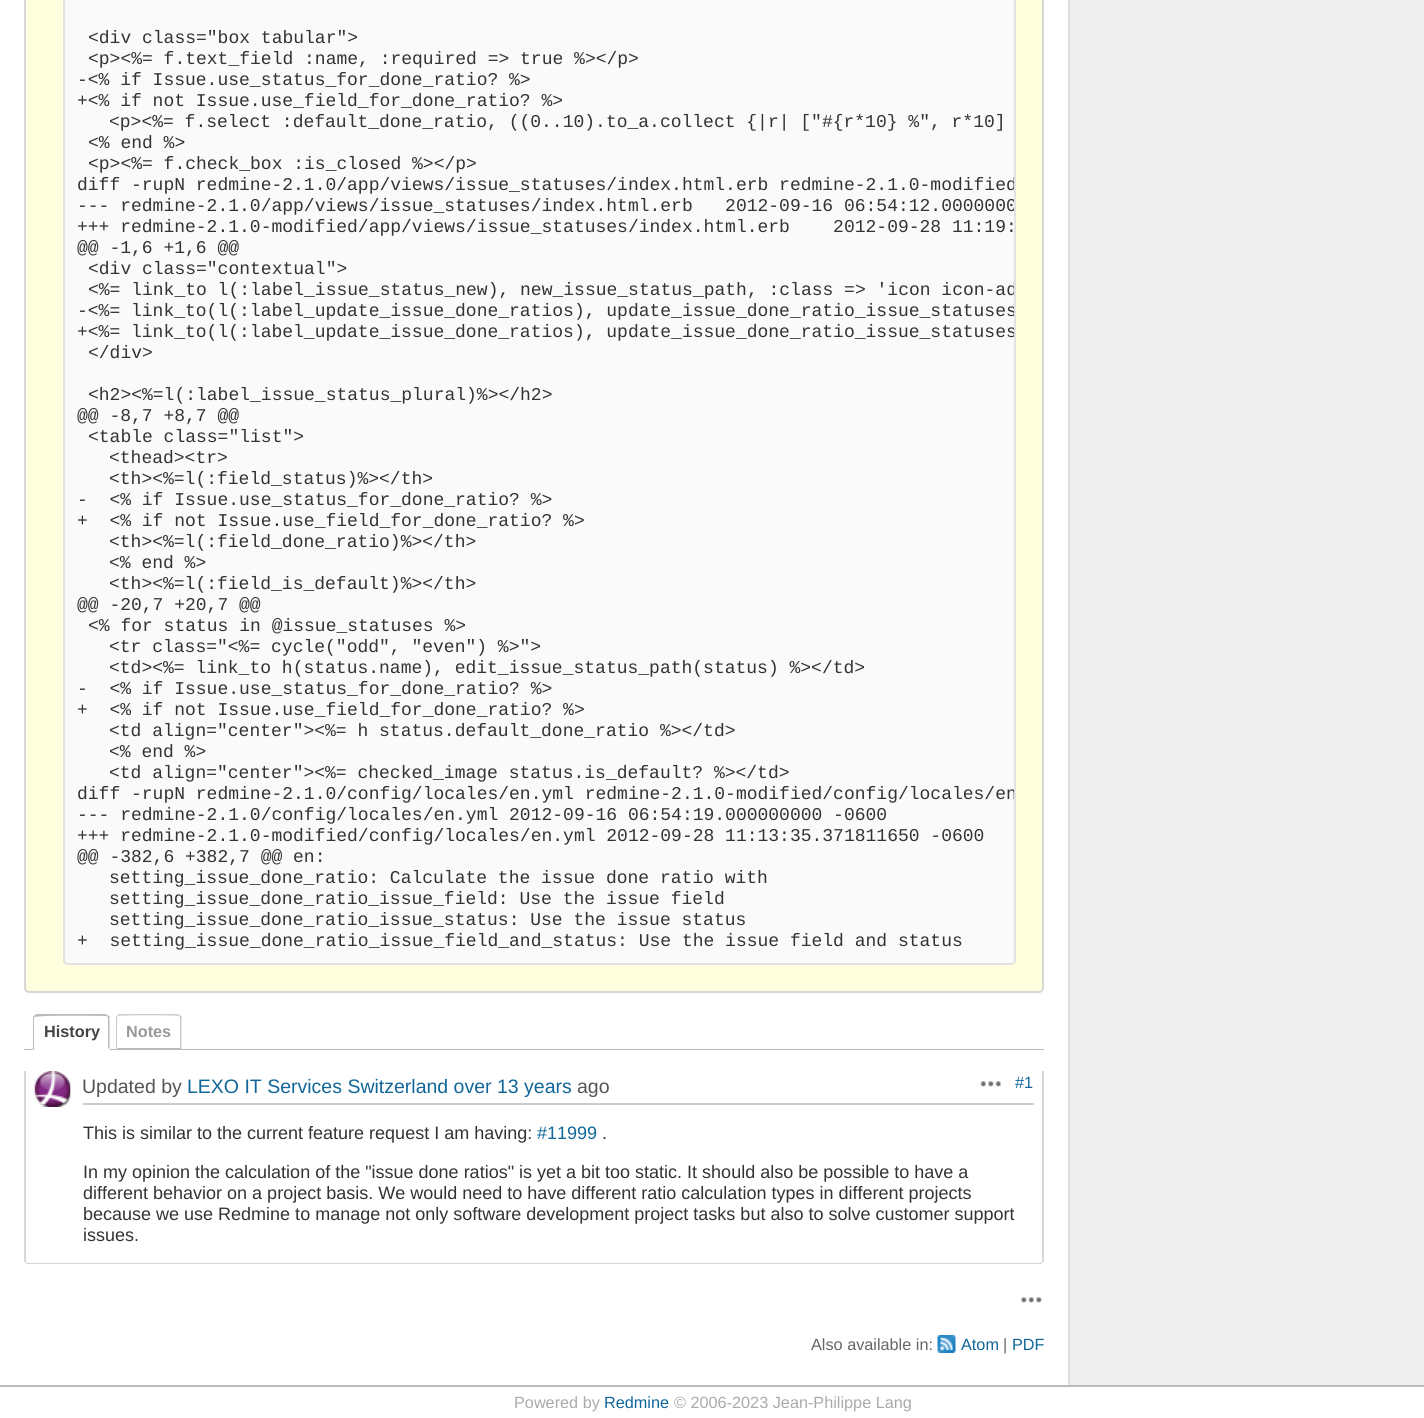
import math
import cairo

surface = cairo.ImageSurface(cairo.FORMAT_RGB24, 1424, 1418)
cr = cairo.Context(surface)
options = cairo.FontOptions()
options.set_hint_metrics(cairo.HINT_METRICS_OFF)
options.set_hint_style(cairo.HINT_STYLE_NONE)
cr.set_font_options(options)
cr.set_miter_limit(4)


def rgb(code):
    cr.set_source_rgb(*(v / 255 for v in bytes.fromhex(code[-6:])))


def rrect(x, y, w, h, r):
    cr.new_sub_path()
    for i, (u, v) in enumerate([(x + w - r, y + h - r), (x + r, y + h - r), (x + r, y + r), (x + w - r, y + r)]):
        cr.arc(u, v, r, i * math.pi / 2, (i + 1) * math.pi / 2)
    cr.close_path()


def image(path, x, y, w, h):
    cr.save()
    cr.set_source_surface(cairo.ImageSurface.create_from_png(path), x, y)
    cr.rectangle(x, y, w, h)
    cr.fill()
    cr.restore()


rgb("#ffffff")
cr.paint()
rgb("#ffffdd")
rrect(25, -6, 1018, 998, 4)
cr.fill_preserve()
rgb("#d7d7d7")
cr.stroke()
rgb("#fafafa")
rrect(64, -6, 951, 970, 4)
cr.fill_preserve()
rgb("#e2e2e2")
cr.stroke()
rgb("#bbbbbb")
cr.rectangle(24, 1049, 1020, 1)
cr.fill()
rgb("#ffffff")
cr.new_path()
cr.move_to(38, 1014)
cr.line_to(105, 1014)
cr.curve_to(108, 1014, 110, 1016, 110, 1019)
cr.line_to(110, 1050)
cr.line_to(33, 1050)
cr.line_to(33, 1019)
cr.curve_to(33, 1016, 35, 1014, 38, 1014)
cr.close_path()
cr.fill()
rgb("#bbbbbb")
cr.new_path()
cr.move_to(38, 1014)
cr.curve_to(36, 1014, 35, 1015, 34, 1015)
cr.line_to(36, 1017)
cr.curve_to(38, 1015, 106, 1016, 107, 1016)
cr.line_to(108, 1015)
cr.line_to(105, 1014)
cr.close_path()
cr.fill()
cr.new_path()
cr.move_to(109.5, 1016.5)
cr.line_to(109.5, 1050)
cr.line_to(107.5, 1048)
cr.line_to(108, 1048)
cr.line_to(108, 1017.5)
cr.line_to(107, 1016.5)
cr.line_to(108, 1015)
cr.close_path()
cr.fill()
rgb("#ffffff")
cr.new_path()
cr.move_to(110, 1050)
cr.line_to(108, 1048)
cr.line_to(35, 1048)
cr.line_to(33, 1050)
cr.close_path()
cr.fill()
rgb("#bbbbbb")
cr.new_path()
cr.move_to(33, 1050)
cr.line_to(35, 1048)
cr.line_to(34, 1048)
cr.line_to(34, 1018)
cr.line_to(35.5, 1016.5)
cr.line_to(34.5, 1015.5)
cr.curve_to(33.5, 1016, 33, 1017, 33, 1018)
cr.close_path()
cr.fill()
rgb("#cccccc")
cr.new_path()
cr.move_to(120, 1014)
cr.curve_to(119, 1014, 118, 1015, 117, 1016)
cr.line_to(118, 1016)
cr.curve_to(120, 1015, 177, 1015, 179, 1016)
cr.line_to(180, 1015)
cr.line_to(177, 1014)
cr.close_path()
cr.fill()
cr.new_path()
cr.move_to(181.5, 1016.5)
cr.line_to(181.5, 1050)
cr.line_to(179.5, 1048)
cr.line_to(180, 1048)
cr.line_to(180, 1017.5)
cr.line_to(179, 1016.5)
cr.line_to(180, 1015)
cr.close_path()
cr.fill()
rgb("#bbbbbb")
cr.new_path()
cr.move_to(182, 1050)
cr.line_to(180, 1048)
cr.line_to(118, 1048)
cr.line_to(116, 1050)
cr.close_path()
cr.fill()
rgb("#cccccc")
cr.new_path()
cr.move_to(117, 1015.5)
cr.curve_to(116.5, 1016, 116, 1017, 116, 1018)
cr.line_to(116, 1049.5)
cr.line_to(117.5, 1048)
cr.line_to(117, 1048)
cr.line_to(117, 1017.5)
cr.line_to(118, 1016.5)
cr.close_path()
cr.fill()
rgb("#d7d7d7")
cr.set_fill_rule(cairo.FILL_RULE_EVEN_ODD)
cr.new_path()
cr.move_to(24, 1071)
cr.line_to(1044, 1071)
cr.line_to(1044, 1260)
cr.curve_to(1044, 1262, 1042, 1264, 1040, 1264)
cr.line_to(28, 1264)
cr.curve_to(26, 1264, 24, 1262, 24, 1260)
cr.close_path()
cr.move_to(26, 1071)
cr.line_to(1042, 1071)
cr.line_to(1042, 1260)
cr.curve_to(1042, 1262, 1041, 1263, 1040, 1263)
cr.line_to(28, 1263)
cr.curve_to(27, 1263, 26, 1262, 26, 1260)
cr.close_path()
cr.fill()
rgb("#cccccc")
cr.rectangle(83, 1103, 951, 2)
cr.fill()
image("img/1.png", 34, 1071, 37, 36)
image("img/2.png", 980, 1081, 21, 6)
image("img/3.png", 1021, 1297, 21, 6)
image("img/4.png", 937, 1335, 19, 18)
for x, y, w, h, color in [
    (1070, 0, 354, 1385, "#eeeeee"),
    (1068, 0, 2, 1385, "#dddddd"),
    (0, 1385, 1424, 2, "#bbbbbb"),
]:
    rgb(color)
    cr.rectangle(x, y, w, h)
    cr.fill()
cr.select_font_face("Liberation Mono")
cr.set_font_size(18)
rgb("#333333")
for x, y, s in [
    (88, 43, "<div class=\"box tabular\">"),
    (88, 64, "<p><%= f.text_field :name, :required => true %></p>"),
    (77, 85, "-<% if Issue.use_status_for_done_ratio? %>"),
    (77, 106, "+<% if not Issue.use_field_for_done_ratio? %>"),
    (109, 127, "<p><%= f.select :default_done_ratio, ((0..10).to_a.collect {|r| [\"#{r*10} %\", r*10]"),
    (88, 148, "<% end %>"),
    (88, 169, "<p><%= f.check_box :is_closed %></p>"),
]:
    cr.move_to(x, y)
    cr.show_text(s)
cr.save()
cr.set_fill_rule(cairo.FILL_RULE_WINDING)
rrect(65, -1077, 949, 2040, 3)
cr.clip()
cr.move_to(77, 190)
cr.show_text("diff -rupN redmine-2.1.0/app/views/issue_statuses/index.html.erb redmine-2.1.0-modified")
cr.move_to(77, 211)
cr.show_text("--- redmine-2.1.0/app/views/issue_statuses/index.html.erb   2012-09-16 06:54:12.0000000")
cr.restore()
for x, y, s in [
    (77, 232, "+++ redmine-2.1.0-modified/app/views/issue_statuses/index.html.erb    2012-09-28 11:19:"),
    (77, 253, "@@ -1,6 +1,6 @@"),
    (88, 274, "<div class=\"contextual\">"),
]:
    cr.move_to(x, y)
    cr.show_text(s)
cr.save()
cr.set_fill_rule(cairo.FILL_RULE_WINDING)
rrect(65, -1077, 949, 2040, 3)
cr.clip()
for x, y, s in [
    (88, 295, "<%= link_to l(:label_issue_status_new), new_issue_status_path, :class => 'icon icon-ad"),
    (77, 316, "-<%= link_to(l(:label_update_issue_done_ratios), update_issue_done_ratio_issue_statuses"),
    (77, 337, "+<%= link_to(l(:label_update_issue_done_ratios), update_issue_done_ratio_issue_statuses"),
]:
    cr.move_to(x, y)
    cr.show_text(s)
cr.restore()
for x, y, s in [
    (88, 358, "</div>"),
    (88, 400, "<h2><%=l(:label_issue_status_plural)%></h2>"),
    (77, 421, "@@ -8,7 +8,7 @@"),
    (88, 442, "<table class=\"list\">"),
    (109, 463, "<thead><tr>"),
    (109, 484, "<th><%=l(:field_status)%></th>"),
    (77, 505, "-  <% if Issue.use_status_for_done_ratio? %>"),
    (77, 526, "+  <% if not Issue.use_field_for_done_ratio? %>"),
    (109, 547, "<th><%=l(:field_done_ratio)%></th>"),
    (109, 568, "<% end %>"),
    (109, 589, "<th><%=l(:field_is_default)%></th>"),
    (77, 610, "@@ -20,7 +20,7 @@"),
    (88, 631, "<% for status in @issue_statuses %>"),
    (109, 652, "<tr class=\"<%= cycle(\"odd\", \"even\") %>\">"),
    (109, 673, "<td><%= link_to h(status.name), edit_issue_status_path(status) %></td>"),
    (77, 694, "-  <% if Issue.use_status_for_done_ratio? %>"),
    (77, 715, "+  <% if not Issue.use_field_for_done_ratio? %>"),
    (109, 736, "<td align=\"center\"><%= h status.default_done_ratio %></td>"),
    (109, 757, "<% end %>"),
    (109, 778, "<td align=\"center\"><%= checked_image status.is_default? %></td>"),
]:
    cr.move_to(x, y)
    cr.show_text(s)
cr.save()
cr.set_fill_rule(cairo.FILL_RULE_WINDING)
rrect(65, -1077, 949, 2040, 3)
cr.clip()
cr.move_to(77, 799)
cr.show_text("diff -rupN redmine-2.1.0/config/locales/en.yml redmine-2.1.0-modified/config/locales/en")
cr.restore()
for x, y, s in [
    (77, 820, "--- redmine-2.1.0/config/locales/en.yml 2012-09-16 06:54:19.000000000 -0600"),
    (77, 841, "+++ redmine-2.1.0-modified/config/locales/en.yml 2012-09-28 11:13:35.371811650 -0600"),
    (77, 862, "@@ -382,6 +382,7 @@ en:"),
    (109, 883, "setting_issue_done_ratio: Calculate the issue done ratio with"),
    (109, 904, "setting_issue_done_ratio_issue_field: Use the issue field"),
    (109, 925, "setting_issue_done_ratio_issue_status: Use the issue status"),
    (77, 946, "+  setting_issue_done_ratio_issue_field_and_status: Use the issue field and status"),
]:
    cr.move_to(x, y)
    cr.show_text(s)
cr.select_font_face("Liberation Sans", cairo.FONT_SLANT_NORMAL, cairo.FONT_WEIGHT_BOLD)
cr.set_font_size(16.25)
rgb("#444444")
cr.move_to(44, 1037)
cr.show_text("History")
rgb("#999999")
cr.move_to(126, 1037)
cr.show_text("Notes")
cr.select_font_face("Liberation Sans")
cr.set_font_size(19.5)
rgb("#555555")
cr.move_to(82, 1093)
cr.show_text("Updated by")
rgb("#116699")
cr.move_to(187, 1093)
cr.show_text("LEXO IT Services Switzerland over 13 years")
rgb("#555555")
cr.move_to(577, 1093)
cr.show_text("ago")
cr.set_font_size(16.25)
rgb("#116699")
cr.move_to(1015, 1088)
cr.show_text("#1")
cr.set_font_size(18)
rgb("#333333")
cr.move_to(83, 1139)
cr.show_text("This is similar to the current feature request I am having:")
rgb("#116699")
cr.move_to(537, 1139)
cr.show_text("#11999")
rgb("#333333")
for x, y, s in [
    (602, 1139, "."),
    (83, 1178, "In my opinion the calculation of the \"issue done ratios\" is yet a bit too static. It should also be possible to have a"),
    (83, 1199, "different behavior on a project basis. We would need to have different ratio calculation types in different projects"),
    (83, 1220, "because we use Redmine to manage not only software development project tasks but also to solve customer support"),
    (83, 1241, "issues."),
]:
    cr.move_to(x, y)
    cr.show_text(s)
cr.set_font_size(16.25)
rgb("#666666")
cr.move_to(811, 1350)
cr.show_text("Also available in:")
rgb("#116699")
cr.move_to(961, 1350)
cr.show_text("Atom")
rgb("#666666")
cr.move_to(1003, 1350)
cr.show_text("|")
rgb("#116699")
cr.move_to(1012, 1350)
cr.show_text("PDF")
rgb("#aaaaaa")
cr.move_to(514, 1408)
cr.show_text("Powered by")
rgb("#116699")
cr.move_to(604, 1408)
cr.show_text("Redmine")
rgb("#aaaaaa")
cr.move_to(674, 1408)
cr.show_text("© 2006-2023 Jean-Philippe Lang")
surface.write_to_png("page.png")
